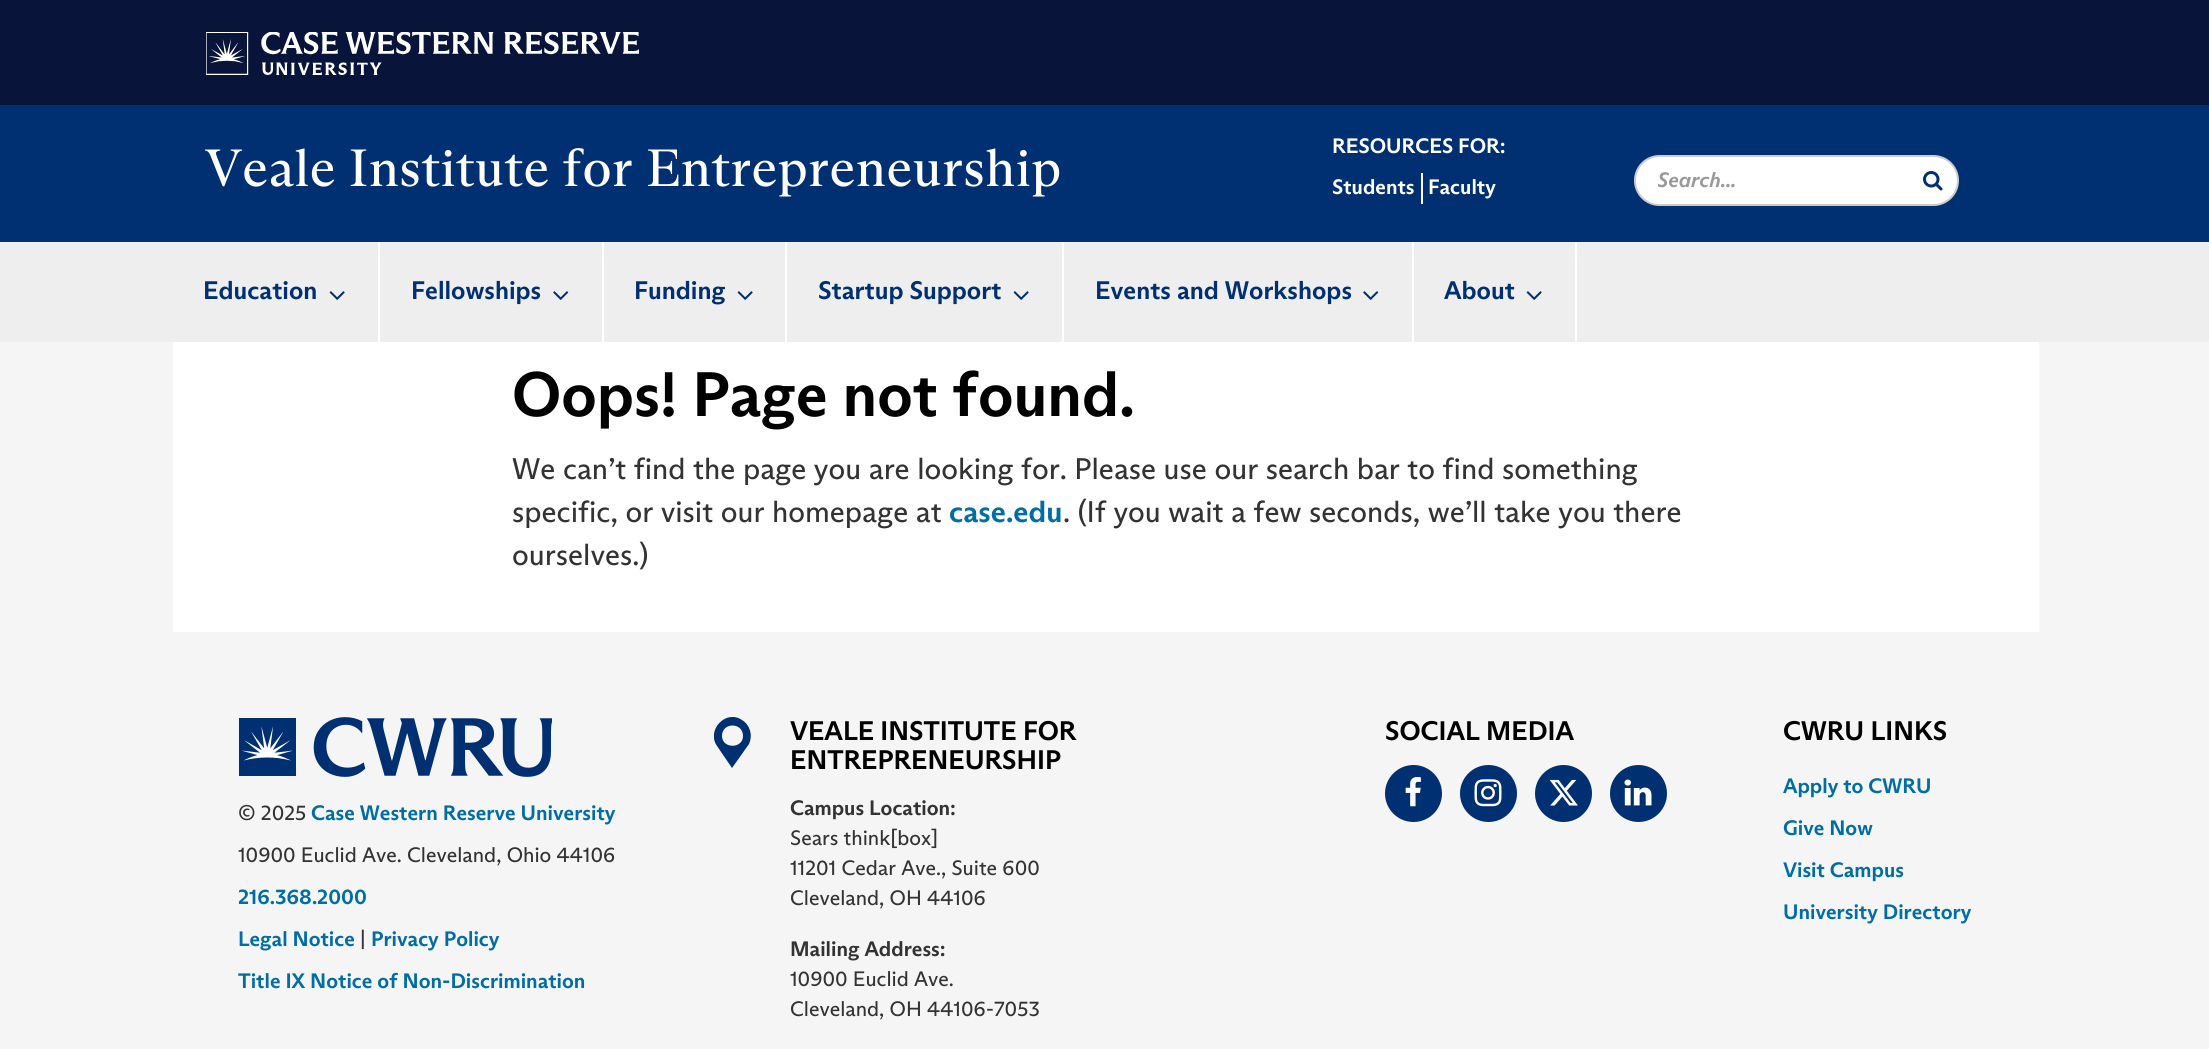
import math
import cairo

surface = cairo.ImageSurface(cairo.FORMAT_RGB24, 2209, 1049)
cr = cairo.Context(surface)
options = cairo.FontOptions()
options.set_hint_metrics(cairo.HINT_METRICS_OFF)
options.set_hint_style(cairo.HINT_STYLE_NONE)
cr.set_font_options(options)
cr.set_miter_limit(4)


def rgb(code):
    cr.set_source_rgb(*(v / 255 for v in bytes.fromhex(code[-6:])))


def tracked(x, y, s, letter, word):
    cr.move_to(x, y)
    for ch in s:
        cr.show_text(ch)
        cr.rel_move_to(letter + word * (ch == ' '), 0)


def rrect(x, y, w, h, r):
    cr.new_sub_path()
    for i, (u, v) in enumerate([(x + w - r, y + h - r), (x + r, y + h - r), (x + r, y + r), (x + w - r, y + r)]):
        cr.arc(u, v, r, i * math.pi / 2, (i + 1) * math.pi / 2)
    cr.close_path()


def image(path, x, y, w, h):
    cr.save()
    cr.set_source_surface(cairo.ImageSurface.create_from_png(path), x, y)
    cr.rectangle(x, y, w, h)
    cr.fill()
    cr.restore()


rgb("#f5f5f5")
cr.paint()
rgb("#09143a")
cr.rectangle(0, 0, 2209, 105)
cr.fill()
image("img/1.png", 206, 32, 433, 43)
rgb("#003071")
cr.rectangle(0, 105, 2209, 137)
cr.fill()
rgb("#ffffff")
cr.rectangle(1421, 173, 2, 31)
cr.fill()
rrect(1635, 156, 323, 49, 24.5)
cr.fill_preserve()
rgb("#cccccc")
cr.stroke()
image("img/2.png", 1923, 171, 20, 20)
rgb("#eeeeee")
cr.rectangle(0, 242, 2209, 100)
cr.fill()
rgb("#ffffff")
cr.rectangle(378, 242, 2, 100)
cr.fill()
image("img/3.png", 329, 291, 16, 9)
cr.rectangle(602, 242, 2, 100)
cr.fill()
image("img/4.png", 553, 291, 16, 9)
cr.rectangle(785, 242, 2, 100)
cr.fill()
image("img/3.png", 737, 291, 16, 9)
cr.rectangle(1062, 242, 2, 100)
cr.fill()
image("img/3.png", 1013, 291, 16, 9)
cr.rectangle(1412, 242, 2, 100)
cr.fill()
image("img/4.png", 1363, 291, 16, 9)
cr.rectangle(1575, 242, 2, 100)
cr.fill()
image("img/3.png", 1526, 291, 16, 9)
cr.rectangle(173, 342, 1866, 290)
cr.fill()
image("img/5.png", 239, 717, 313, 60)
cr.save()
cr.rectangle(714, 717, 38, 51)
cr.clip()
rgb("#003071")
cr.new_path()
cr.move_to(717, 746)
cr.curve_to(706, 730, 726, 709, 742, 720)
cr.curve_to(750, 725, 753, 735, 749, 744)
cr.line_to(732, 768)
cr.close_path()
cr.move_to(722, 736)
cr.curve_to(722, 749, 743, 749, 743, 736)
cr.curve_to(743, 722, 722, 722, 722, 736)
cr.close_path()
cr.fill()
cr.restore()
rgb("#003071")
cr.arc(1413.5, 793.5, 28.5, 0, 2 * math.pi)
cr.fill()
image("img/6.png", 1405, 777, 16, 30)
cr.arc(1488.5, 793.5, 28.5, 0, 2 * math.pi)
cr.fill()
image("img/7.png", 1474, 779, 28, 28)
cr.arc(1563.5, 793.5, 28.5, 0, 2 * math.pi)
cr.fill()
image("img/8.png", 1549, 779, 29, 27)
cr.arc(1638.5, 793.5, 28.5, 0, 2 * math.pi)
cr.fill()
image("img/9.png", 1624, 779, 28, 27)
cr.select_font_face("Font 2")
cr.set_font_size(52.5)
rgb("#ffffff")
tracked(205, 186, "Veale Institute for Entrepreneurship", 0.5, 0)
cr.select_font_face("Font", cairo.FONT_SLANT_NORMAL, cairo.FONT_WEIGHT_BOLD)
cr.set_font_size(21)
for x, y, s in [
    (1332, 153, "RESOURCES FOR:"),
    (1332, 194, "Students"),
    (1428, 194, "Faculty"),
]:
    cr.move_to(x, y)
    cr.show_text(s)
cr.save()
cr.rectangle(1658, 167, 294, 27)
cr.clip()
cr.select_font_face("Font", cairo.FONT_SLANT_ITALIC, cairo.FONT_WEIGHT_BOLD)
rgb("#999999")
cr.move_to(1657, 187)
cr.show_text("Search...")
cr.restore()
cr.set_font_size(25.5)
rgb("#003071")
for x, y, s in [
    (203, 299, "Education"),
    (411, 299, "Fellowships"),
    (634, 299, "Funding"),
    (818, 299, "Startup Support"),
    (1095, 299, "Events and Workshops"),
    (1444, 299, "About"),
]:
    cr.move_to(x, y)
    cr.show_text(s)
cr.set_font_size(63)
rgb("#000000")
cr.move_to(512, 416)
cr.show_text("Oops! Page not found.")
cr.select_font_face("Font")
cr.set_font_size(30)
rgb("#333333")
cr.move_to(512, 479)
cr.show_text("We can’t find the page you are looking for. Please use our search bar to find something")
cr.move_to(512, 522)
cr.show_text("specific, or visit our homepage at")
cr.select_font_face("Font", cairo.FONT_SLANT_NORMAL, cairo.FONT_WEIGHT_BOLD)
rgb("#006da3")
cr.move_to(949, 522)
cr.show_text("case.edu")
cr.select_font_face("Font")
rgb("#333333")
cr.move_to(1063, 522)
cr.show_text(". (If you wait a few seconds, we’ll take you there")
cr.move_to(512, 565)
cr.show_text("ourselves.)")
cr.set_font_size(21)
cr.move_to(238, 820)
cr.show_text("© 2025")
cr.select_font_face("Font", cairo.FONT_SLANT_NORMAL, cairo.FONT_WEIGHT_BOLD)
rgb("#006da3")
cr.move_to(311, 820)
cr.show_text("Case Western Reserve University")
cr.select_font_face("Font")
rgb("#333333")
cr.move_to(238, 862)
cr.show_text("10900 Euclid Ave. Cleveland, Ohio 44106")
cr.select_font_face("Font", cairo.FONT_SLANT_NORMAL, cairo.FONT_WEIGHT_BOLD)
rgb("#006da3")
cr.move_to(238, 904)
cr.show_text("216.368.2000")
cr.move_to(238, 946)
cr.show_text("Legal Notice")
cr.select_font_face("Font")
rgb("#333333")
cr.move_to(360, 946)
cr.show_text("|")
cr.select_font_face("Font", cairo.FONT_SLANT_NORMAL, cairo.FONT_WEIGHT_BOLD)
rgb("#006da3")
cr.move_to(371, 946)
cr.show_text("Privacy Policy")
cr.move_to(238, 988)
cr.show_text("Title IX Notice of Non-Discrimination")
cr.set_font_size(27)
rgb("#000000")
cr.move_to(790, 740)
cr.show_text("VEALE INSTITUTE FOR")
cr.move_to(790, 769)
cr.show_text("ENTREPRENEURSHIP")
cr.set_font_size(21)
rgb("#333333")
cr.move_to(790, 815)
cr.show_text("Campus Location:")
cr.select_font_face("Font")
for x, y, s in [
    (790, 845, "Sears think[box]"),
    (790, 875, "11201 Cedar Ave., Suite 600"),
    (790, 905, "Cleveland, OH 44106"),
]:
    cr.move_to(x, y)
    cr.show_text(s)
cr.select_font_face("Font", cairo.FONT_SLANT_NORMAL, cairo.FONT_WEIGHT_BOLD)
cr.move_to(790, 956)
cr.show_text("Mailing Address:")
cr.select_font_face("Font")
cr.move_to(790, 986)
cr.show_text("10900 Euclid Ave.")
cr.move_to(790, 1016)
cr.show_text("Cleveland, OH 44106-7053")
cr.select_font_face("Font", cairo.FONT_SLANT_NORMAL, cairo.FONT_WEIGHT_BOLD)
cr.set_font_size(27)
rgb("#000000")
cr.move_to(1385, 740)
cr.show_text("SOCIAL MEDIA")
cr.move_to(1783, 740)
cr.show_text("CWRU LINKS")
cr.set_font_size(21)
rgb("#006da3")
for x, y, s in [
    (1783, 793, "Apply to CWRU"),
    (1783, 835, "Give Now"),
    (1783, 877, "Visit Campus"),
    (1783, 919, "University Directory"),
]:
    cr.move_to(x, y)
    cr.show_text(s)
surface.write_to_png("page.png")
